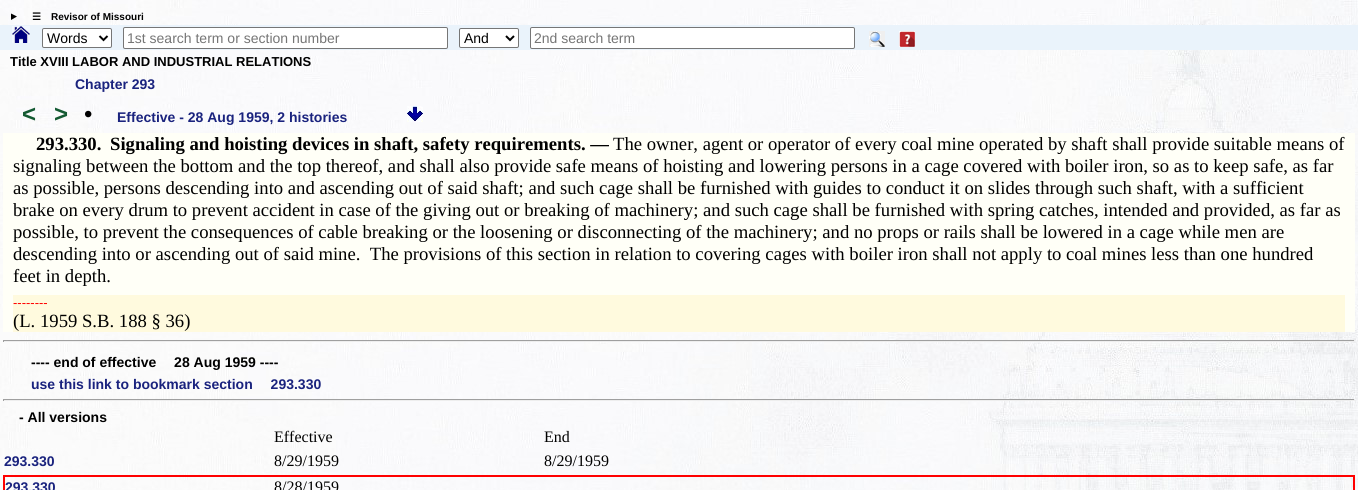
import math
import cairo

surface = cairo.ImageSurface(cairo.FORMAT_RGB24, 1358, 490)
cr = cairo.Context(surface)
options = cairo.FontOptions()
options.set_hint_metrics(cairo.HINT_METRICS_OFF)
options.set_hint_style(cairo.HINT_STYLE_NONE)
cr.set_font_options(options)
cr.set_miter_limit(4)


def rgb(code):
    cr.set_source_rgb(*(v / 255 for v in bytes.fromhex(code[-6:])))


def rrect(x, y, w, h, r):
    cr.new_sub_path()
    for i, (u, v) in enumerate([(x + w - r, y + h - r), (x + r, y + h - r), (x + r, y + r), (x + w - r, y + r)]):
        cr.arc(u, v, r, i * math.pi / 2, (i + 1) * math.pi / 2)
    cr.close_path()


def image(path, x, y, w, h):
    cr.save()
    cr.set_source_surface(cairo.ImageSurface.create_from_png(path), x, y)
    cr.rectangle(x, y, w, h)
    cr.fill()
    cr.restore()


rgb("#ffffff")
cr.paint()
image("img/1.png", 0, 0, 1358, 490)
rgb("#000000")
cr.new_path()
cr.move_to(11, 13.5)
cr.line_to(17, 16.5)
cr.line_to(11, 20)
cr.close_path()
cr.fill()
rgb("#eaf3fb")
cr.rectangle(0, 25, 1358, 25)
cr.fill()
image("img/2.png", 12, 26, 18, 17)
rgb("#ffffff")
rrect(42.5, 28.5, 69, 19, 1.5)
cr.fill_preserve()
rgb("#767676")
cr.set_line_width(1)
cr.stroke()
cr.new_path()
cr.move_to(99.5, 36)
cr.line_to(103.5, 40)
cr.line_to(107.5, 36)
rgb("#000000")
cr.set_line_width(2)
cr.stroke()
rgb("#ffffff")
rrect(123.5, 27.5, 324, 21, 1.5)
cr.fill_preserve()
rgb("#767676")
cr.set_line_width(1)
cr.stroke()
rgb("#ffffff")
rrect(459.5, 28.5, 59, 19, 1.5)
cr.fill_preserve()
rgb("#767676")
cr.stroke()
cr.new_path()
cr.move_to(506, 36)
cr.line_to(510, 40)
cr.line_to(514, 36)
rgb("#000000")
cr.set_line_width(2)
cr.stroke()
rgb("#ffffff")
rrect(530.5, 27.5, 324, 21, 1.5)
cr.fill_preserve()
rgb("#767676")
cr.set_line_width(1)
cr.stroke()
image("img/3.png", 869, 31, 16, 16)
image("img/4.png", 899, 31, 16, 16)
image("img/5.png", 407, 106, 16, 16)
for x, y, w, h, color in [
    (3, 133, 1352, 199, "#fffff7"),
    (13, 295, 1332, 37, "#fffade"),
    (3, 340, 1352, 1, "#9f9f9f"),
    (1354, 340, 1, 2, "#eeeeee"),
    (3, 341, 1352, 1, "#eeeeee"),
    (3, 340, 1, 2, "#9f9f9f"),
    (3, 399, 1352, 1, "#9f9f9f"),
    (1354, 399, 1, 2, "#eeeeee"),
    (3, 400, 1352, 1, "#eeeeee"),
    (3, 399, 1, 2, "#9f9f9f"),
    (3, 475, 1352, 2, "#ff0000"),
    (1353, 475, 2, 15, "#ff0000"),
    (3, 475, 2, 15, "#ff0000"),
]:
    rgb(color)
    cr.rectangle(x, y, w, h)
    cr.fill()
cr.select_font_face("DejaVu Sans", cairo.FONT_SLANT_NORMAL, cairo.FONT_WEIGHT_BOLD)
cr.set_font_size(10)
rgb("#000000")
cr.move_to(32, 20)
cr.show_text("☰")
cr.select_font_face("Liberation Sans", cairo.FONT_SLANT_NORMAL, cairo.FONT_WEIGHT_BOLD)
cr.move_to(51, 20)
cr.show_text("Revisor of Missouri")
cr.select_font_face("Liberation Sans")
cr.set_font_size(14)
cr.move_to(47, 43)
cr.show_text("Words")
rgb("#757575")
cr.move_to(127, 43)
cr.show_text("1st search term or section number")
rgb("#000000")
cr.move_to(464, 43)
cr.show_text("And")
rgb("#757575")
cr.move_to(534, 43)
cr.show_text("2nd search term")
cr.select_font_face("Liberation Sans", cairo.FONT_SLANT_NORMAL, cairo.FONT_WEIGHT_BOLD)
cr.set_font_size(13)
rgb("#000000")
cr.move_to(10, 66)
cr.show_text("Title XVIII LABOR AND INDUSTRIAL RELATIONS")
cr.set_font_size(14)
rgb("#1a237e")
cr.move_to(75, 89)
cr.show_text("Chapter 293")
cr.set_font_size(24)
rgb("#145a32")
cr.move_to(22, 122)
cr.show_text("<")
cr.move_to(54, 122)
cr.show_text(">")
cr.select_font_face("Liberation Sans")
rgb("#000000")
cr.move_to(84, 122)
cr.show_text("•")
cr.select_font_face("Liberation Sans", cairo.FONT_SLANT_NORMAL, cairo.FONT_WEIGHT_BOLD)
cr.set_font_size(14)
rgb("#1a237e")
cr.move_to(117, 122)
cr.show_text("Effective - 28 Aug 1959, 2 histories")
cr.select_font_face("Liberation Serif", cairo.FONT_SLANT_NORMAL, cairo.FONT_WEIGHT_BOLD)
cr.set_font_size(18.67)
rgb("#000000")
cr.move_to(36, 150)
cr.show_text("293.330.")
cr.move_to(110, 150)
cr.show_text("Signaling and hoisting devices in shaft, safety requirements. —")
cr.select_font_face("Liberation Serif")
for x, y, s in [
    (613, 150, "The owner, agent or operator of every coal mine operated by shaft shall provide suitable means of"),
    (13, 172, "signaling between the bottom and the top thereof, and shall also provide safe means of hoisting and lowering persons in a cage covered with boiler iron, so as to keep safe, as far"),
    (13, 194, "as possible, persons descending into and ascending out of said shaft; and such cage shall be furnished with guides to conduct it on slides through such shaft, with a sufficient"),
    (13, 216, "brake on every drum to prevent accident in case of the giving out or breaking of machinery; and such cage shall be furnished with spring catches, intended and provided, as far as"),
    (13, 238, "possible, to prevent the consequences of cable breaking or the loosening or disconnecting of the machinery; and no props or rails shall be lowered in a cage while men are"),
    (13, 260, "descending into or ascending out of said mine.  The provisions of this section in relation to covering cages with boiler iron shall not apply to coal mines less than one hundred"),
    (13, 282, "feet in depth."),
]:
    cr.move_to(x, y)
    cr.show_text(s)
cr.select_font_face("Liberation Sans")
cr.set_font_size(13)
rgb("#ff0000")
cr.move_to(13, 307)
cr.show_text("--------")
cr.select_font_face("Liberation Serif")
cr.set_font_size(18.67)
rgb("#000000")
cr.move_to(13, 327)
cr.show_text("(L. 1959 S.B. 188 § 36)")
cr.select_font_face("Liberation Sans", cairo.FONT_SLANT_NORMAL, cairo.FONT_WEIGHT_BOLD)
cr.set_font_size(14)
cr.move_to(31, 367)
cr.show_text("---- end of effective  28 Aug 1959 ----")
rgb("#1a237e")
cr.move_to(31, 389)
cr.show_text("use this link to bookmark section  293.330")
rgb("#000000")
cr.move_to(19, 422)
cr.show_text("- All versions")
cr.select_font_face("Liberation Serif")
cr.set_font_size(16)
cr.move_to(274, 442)
cr.show_text("Effective")
cr.move_to(544, 442)
cr.show_text("End")
cr.select_font_face("Liberation Sans", cairo.FONT_SLANT_NORMAL, cairo.FONT_WEIGHT_BOLD)
cr.set_font_size(14)
rgb("#1a237e")
cr.move_to(4, 466)
cr.show_text("293.330")
cr.select_font_face("Liberation Serif")
cr.set_font_size(16)
rgb("#000000")
cr.move_to(274, 466)
cr.show_text("8/29/1959")
cr.move_to(544, 466)
cr.show_text("8/29/1959")
cr.select_font_face("Liberation Sans", cairo.FONT_SLANT_NORMAL, cairo.FONT_WEIGHT_BOLD)
cr.set_font_size(14)
rgb("#1a237e")
cr.move_to(5, 492)
cr.show_text("293.330")
cr.select_font_face("Liberation Serif")
cr.set_font_size(16)
rgb("#000000")
cr.move_to(274, 492)
cr.show_text("8/28/1959")
surface.write_to_png("page.png")
